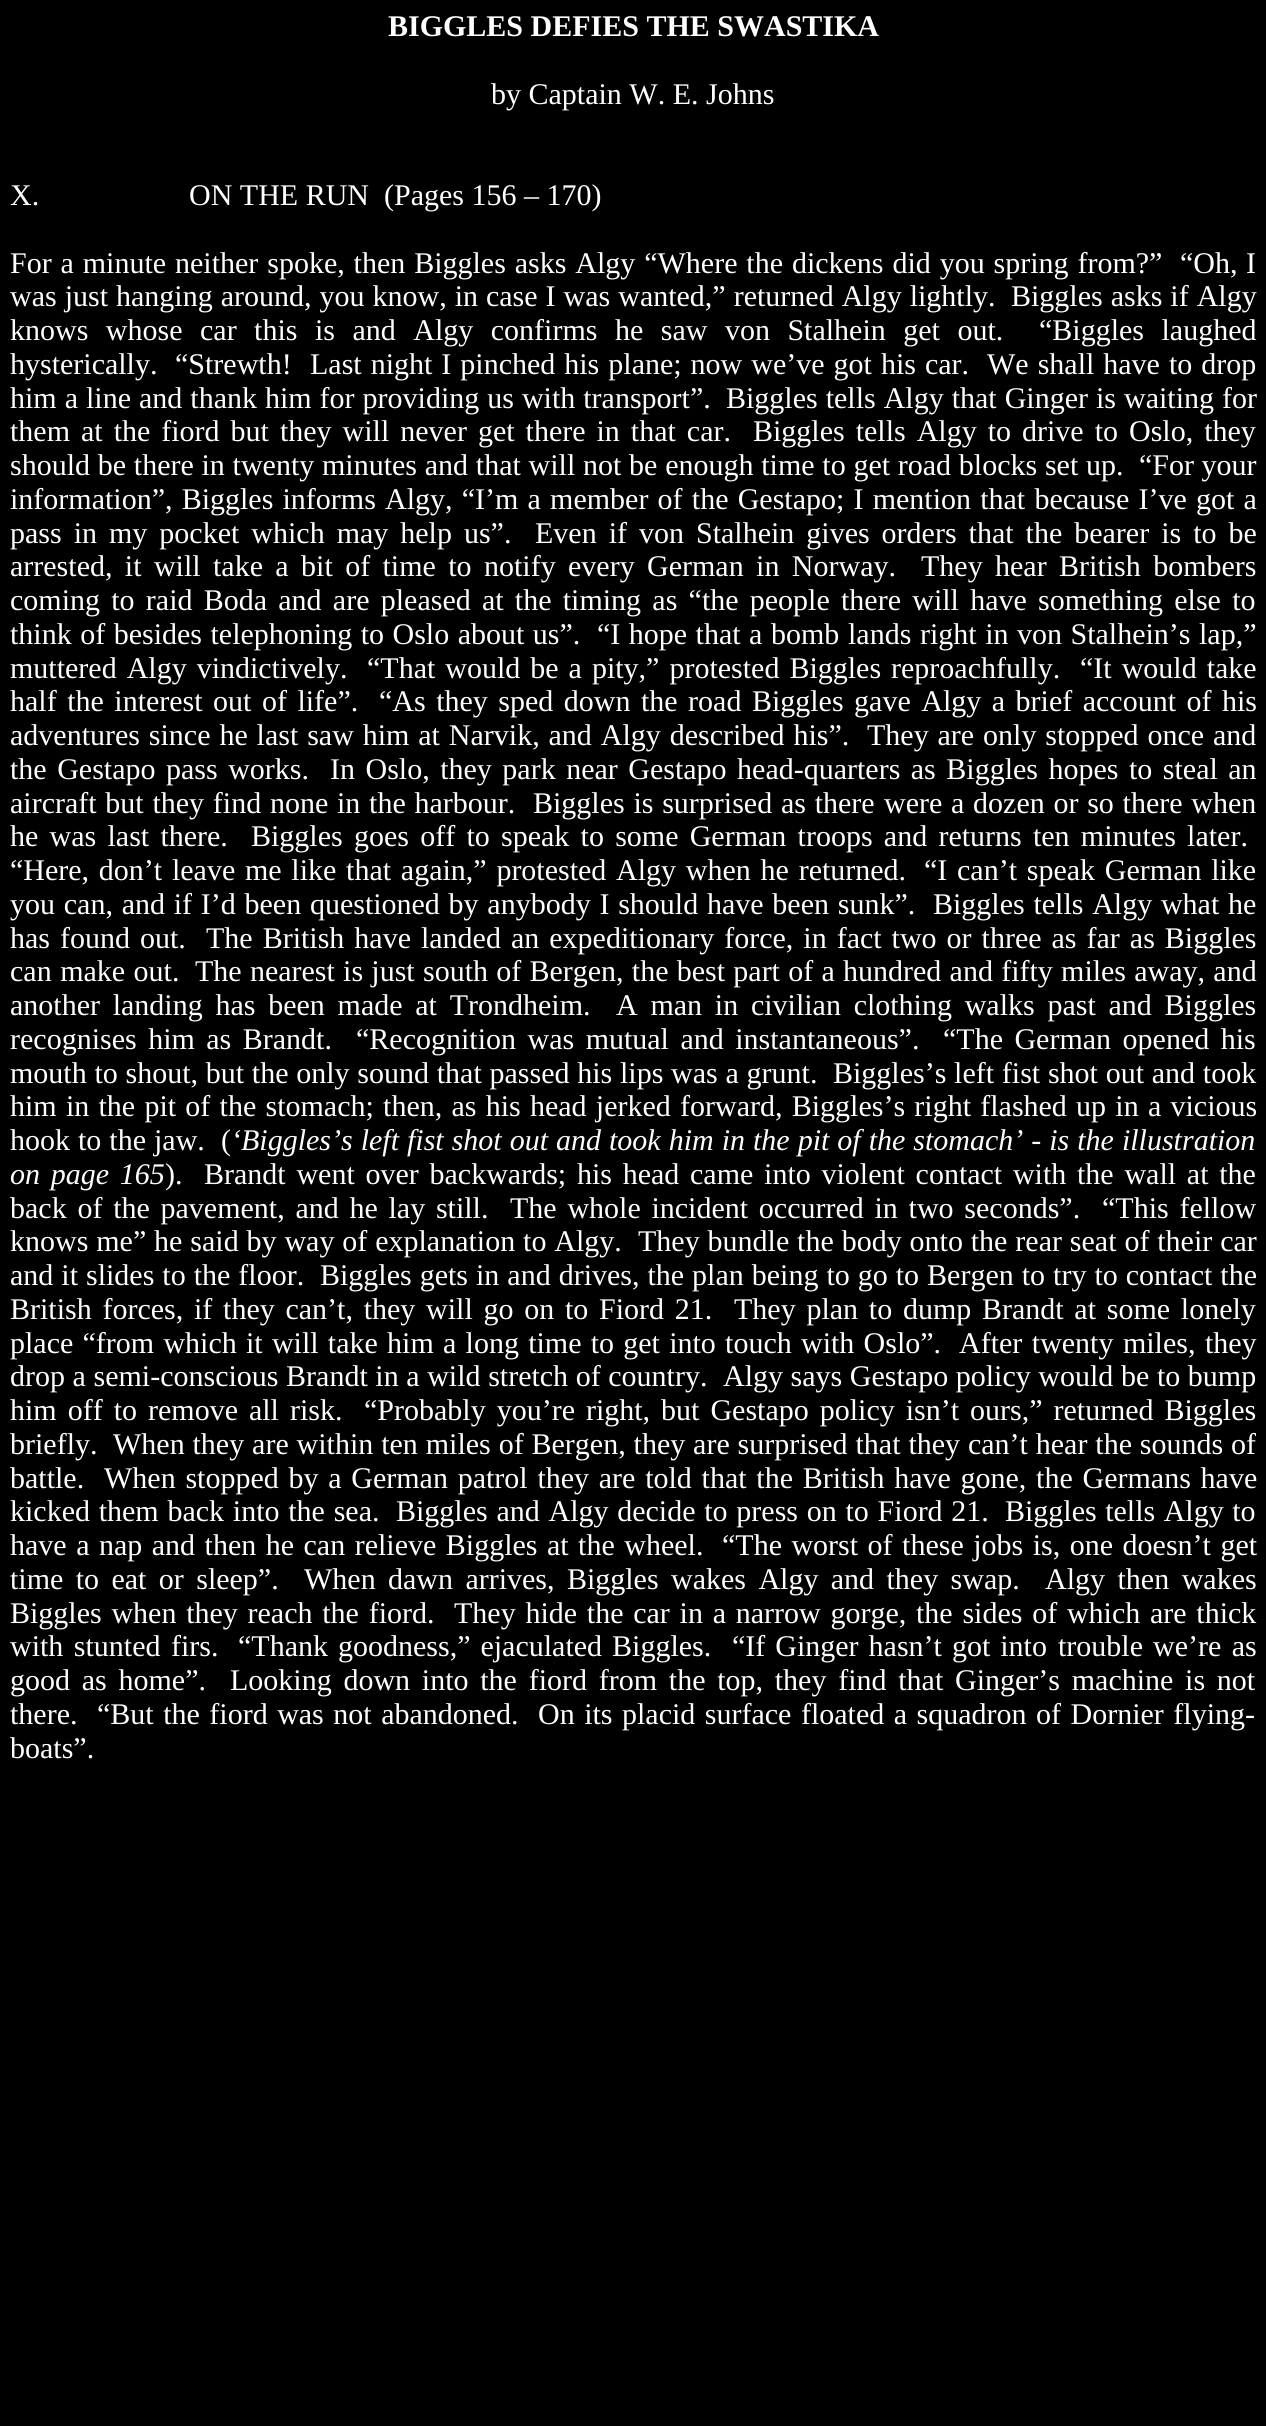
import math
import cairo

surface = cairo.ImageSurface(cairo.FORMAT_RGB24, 1266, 2426)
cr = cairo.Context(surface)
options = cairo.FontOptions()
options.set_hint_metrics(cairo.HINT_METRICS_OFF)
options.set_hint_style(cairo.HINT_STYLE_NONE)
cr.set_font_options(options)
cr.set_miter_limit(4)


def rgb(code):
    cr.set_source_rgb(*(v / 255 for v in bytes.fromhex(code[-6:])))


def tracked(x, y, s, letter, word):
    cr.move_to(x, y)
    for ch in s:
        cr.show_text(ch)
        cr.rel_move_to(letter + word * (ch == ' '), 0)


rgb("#000000")
cr.paint()
cr.select_font_face("Liberation Serif", cairo.FONT_SLANT_NORMAL, cairo.FONT_WEIGHT_BOLD)
cr.set_font_size(30)
rgb("#ffffff")
cr.move_to(388, 36)
cr.show_text("BIGGLES DEFIES THE SWASTIKA")
cr.select_font_face("Liberation Serif")
for x, y, s in [
    (491, 104, "by Captain W. E. Johns"),
    (10, 205, "X."),
    (189, 205, "ON THE RUN"),
    (384, 205, "(Pages 156 – 170)"),
]:
    cr.move_to(x, y)
    cr.show_text(s)
tracked(10, 273, "For a minute neither spoke, then Biggles asks Algy “Where the dickens did you spring from?”", 0, 1.4)
tracked(1180, 273, "“Oh, I", 0, 1)
tracked(10, 306, "was just hanging around, you know, in case I was wanted,” returned Algy lightly.", 0, 0.5)
tracked(1011, 306, "Biggles asks if Algy", 0, 0.5)
tracked(10, 340, "knows whose car this is and Algy confirms he saw von Stalhein get out.", 0, 10)
tracked(1039, 340, "“Biggles laughed", 0, 10)
cr.move_to(10, 374)
cr.show_text("hysterically.")
cr.move_to(175, 374)
cr.show_text("“Strewth!")
tracked(310, 374, "Last night I pinched his plane; now we’ve got his car.", 0, 1.5)
tracked(987, 374, "We shall have to drop", 0, 1.5)
tracked(10, 408, "him a line and thank him for providing us with transport”.", 0, 0.5)
tracked(726, 408, "Biggles tells Algy that Ginger is waiting for", 0, 0.5)
tracked(10, 441, "them at the fiord but they will never get there in that car.", 0, 3.5)
tracked(753, 441, "Biggles tells Algy to drive to Oslo, they", 0, 3.5)
tracked(10, 475, "should be there in twenty minutes and that will not be enough time to get road blocks set up.", 0, 0.25)
cr.move_to(1139, 475)
cr.show_text("“For your")
tracked(10, 509, "information”, Biggles informs Algy, “I’m a member of the Gestapo; I mention that because I’ve got a", 0, 1.7)
tracked(10, 543, "pass in my pocket which may help us”.", 0, 4.5)
tracked(535, 543, "Even if von Stalhein gives orders that the bearer is to be", 0, 4.5)
tracked(10, 576, "arrested, it will take a bit of time to notify every German in Norway.", 0, 4.9)
tracked(921, 576, "They hear British bombers", 0, 4.9)
tracked(10, 610, "coming to raid Boda and are pleased at the timing as “the people there will have something else to", 0, 3.75)
tracked(10, 644, "think of besides telephoning to Oslo about us”.", 0, 1)
tracked(597, 644, "“I hope that a bomb", 0, 1)
cr.move_to(848, 644)
cr.show_text("lands")
tracked(920, 644, "right in von Stalhein’s lap,”", 0, 1)
for x, y, s in [
    (10, 678, "muttered Algy vindictively."),
    (367, 678, "“That would be a pity,” protested Biggles reproachfully."),
    (1080, 678, "“It would take"),
]:
    tracked(x, y, s, 0, 2.5)
tracked(10, 711, "half the interest out of life”.", 0, 3)
tracked(379, 711, "“As they sped down the road Biggles gave Algy a brief account of his", 0, 3)
tracked(10, 745, "adventures since he last saw him at Narvik, and Algy described his”.", 0, 1.4)
tracked(867, 745, "They are only stopped once and", 0, 1.4)
tracked(10, 779, "the Gestapo pass works.", 0, 3)
tracked(330, 779, "In Oslo, they park near Gestapo head-quarters as Biggles hopes to steal an", 0, 3)
tracked(10, 813, "aircraft but they find none in the harbour.", 0, 1.25)
tracked(533, 813, "Biggles is surprised as there", 0, 1.25)
cr.move_to(884, 813)
cr.show_text("were")
tracked(951, 813, "a dozen or so there when", 0, 1.25)
tracked(10, 846, "he was last there.", 0, 3.75)
tracked(251, 846, "Biggles goes off to speak to some German troops and returns ten minutes later.", 0, 3.75)
tracked(10, 880, "“Here, don’t leave me like that again,” protested Algy when he returned.", 0, 2.25)
tracked(924, 880, "“I can’t speak German like", 0, 2.25)
tracked(10, 914, "you can, and if I’d been questioned by anybody I should have been sunk”.", 0, 1.25)
tracked(933, 914, "Biggles tells Algy what he", 0, 1.25)
tracked(10, 948, "has found out.", 0, 2.5)
tracked(206, 948, "The British have landed an expeditionary force, in fact two or three as far as Biggles", 0, 2.5)
tracked(10, 981, "can make out.", 0, 1)
tracked(195, 981, "The nearest is just south of Bergen, the best part of a hundred and fifty miles away, and", 0, 0.75)
tracked(10, 1015, "another landing has been made at Trondheim.", 0, 5.25)
tracked(616, 1015, "A man in civilian clothing walks past and Biggles", 0, 5.25)
for x, y, s in [
    (10, 1049, "recognises him as Brandt."),
    (356, 1049, "“Recognition was mutual and instantaneous”."),
    (943, 1049, "“The German opened his"),
]:
    tracked(x, y, s, 0, 4)
tracked(10, 1083, "mouth to shout, but the only sound that passed his lips was a grunt.", 0, 0.25)
tracked(833, 1083, "Biggles’s left fist shot out and took", 0, 0.25)
tracked(10, 1116, "him in the pit of the stomach; then, as his head jerked forward, Biggles’s right flashed up in a vicious", 0, 1.75)
tracked(10, 1150, "hook to the jaw.", 0, 0.5)
cr.move_to(221, 1150)
cr.show_text("(")
cr.select_font_face("Liberation Serif", cairo.FONT_SLANT_ITALIC)
tracked(231, 1150, "‘Biggles’s left fist shot out and took him in the pit of the stomach’ - is the illustration", 0, 0.5)
tracked(10, 1184, "on page 165", 0, 3.25)
cr.select_font_face("Liberation Serif")
cr.move_to(165, 1184)
cr.show_text(").")
for x, y, s in [
    (204, 1184, "Brandt went over backwards; his head came into violent contact with the wall at the"),
    (10, 1218, "back of the pavement, and he lay still."),
    (510, 1218, "The whole incident occurred in two seconds”."),
    (1102, 1218, "“This fellow"),
]:
    tracked(x, y, s, 0, 3.25)
tracked(10, 1251, "knows me” he said by way of explanation to Algy.", 0, 0.4)
tracked(638, 1251, "They bundle the body onto the rear seat of their car", 0, 0.4)
tracked(10, 1285, "and it slides to the floor.", 0, 0.5)
tracked(320, 1285, "Biggles gets in and drives, the plan being to go to Bergen to try to contact the", 0, 0.5)
tracked(10, 1319, "British forces, if they can’t, they will go on to Fiord 21.", 0, 3.25)
tracked(734, 1319, "They plan to dump Brandt at some lonely", 0, 3.25)
tracked(10, 1353, "place “from which it will take him a long time to get into touch with Oslo”.", 0, 1.75)
tracked(959, 1353, "After twenty miles, they", 0, 2)
tracked(10, 1386, "drop a semi-conscious Brandt in a wild stretch of country.", 0, 0.1)
tracked(723, 1386, "Algy says Gestapo policy would be to bump", 0, 0.1)
tracked(10, 1420, "him off to remove all risk.", 0, 3.5)
tracked(364, 1420, "“Probably you’re right, but Gestapo policy isn’t ours,” returned Biggles", 0, 3.5)
cr.move_to(10, 1454)
cr.show_text("briefly.")
tracked(113, 1454, "When they are within ten miles of Bergen, they are surprised that they can’t hear the sounds of", 0, 0.4)
cr.move_to(10, 1488)
cr.show_text("battle.")
tracked(104, 1488, "When stopped by a German patrol they are told that the British have gone, the Germans have", 0, 2.25)
tracked(10, 1521, "kicked them back into the sea.", 0, 1.25)
tracked(396, 1521, "Biggles and Algy decide to press on to Fiord 21.", 0, 1.25)
tracked(1005, 1521, "Biggles tells Algy to", 0, 1)
tracked(10, 1555, "have a nap and then he can relieve Biggles at the wheel.", 0, 2)
tracked(722, 1555, "“The worst of these jobs is, one doesn’t get", 0, 2)
tracked(10, 1589, "time to eat or sleep”.", 0, 4.9)
tracked(304, 1589, "When dawn arrives, Biggles wakes Algy and they swap.", 0, 4.9)
tracked(1045, 1589, "Algy then wakes", 0, 5)
tracked(10, 1623, "Biggles when they reach the fiord.", 0, 2.25)
tracked(454, 1623, "They hide the car in a narrow gorge, the sides of which are thick", 0, 2.25)
tracked(10, 1656, "with stunted firs.", 0, 3)
tracked(238, 1656, "“Thank goodness,” ejaculated Biggles.", 0, 2.5)
tracked(732, 1656, "“If Ginger hasn’t got into", 0, 2.5)
cr.move_to(1058, 1656)
cr.show_text("trouble")
tracked(1153, 1656, "we’re as", 0, 3)
tracked(10, 1690, "good as home”.", 0, 4.25)
tracked(230, 1690, "Looking down into the fiord from the top, they find that Ginger’s machine is not", 0, 4.25)
cr.move_to(10, 1724)
cr.show_text("there.")
tracked(97, 1724, "“But the fiord was not abandoned.", 0, 2)
tracked(538, 1724, "On its placid surface floated a squadron of Dornier flying-", 0, 2)
cr.move_to(10, 1758)
cr.show_text("boats”.")
surface.write_to_png("page.png")
